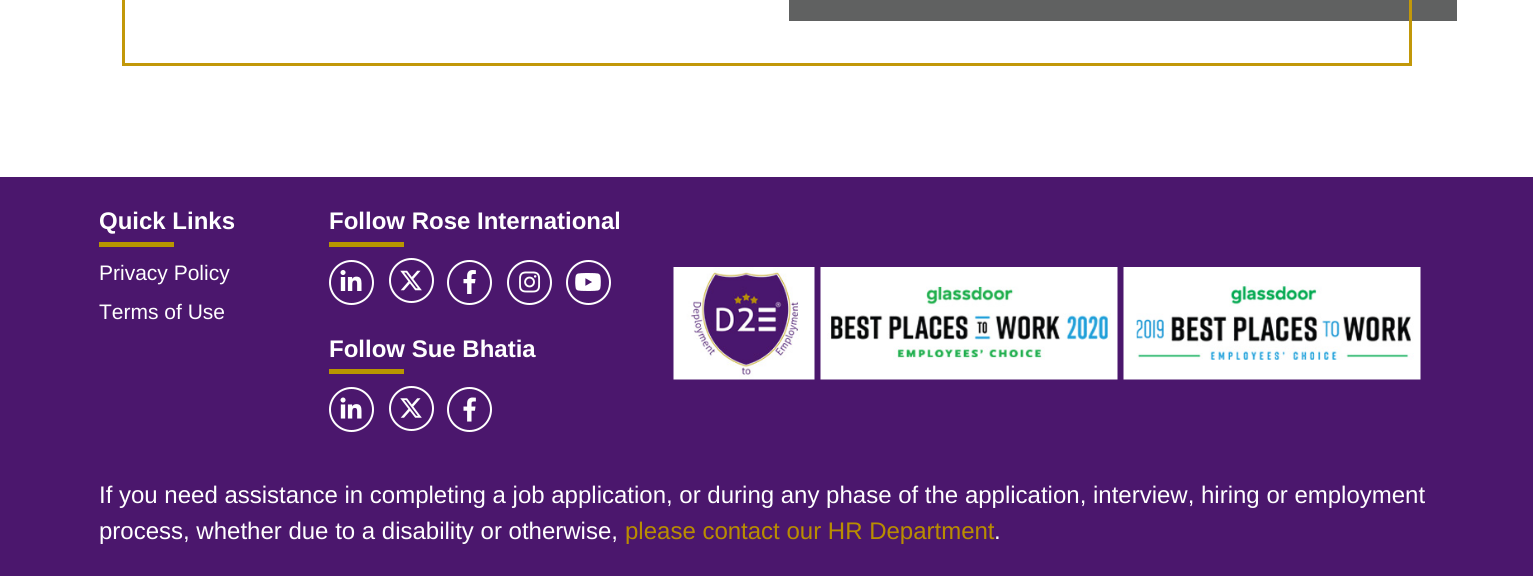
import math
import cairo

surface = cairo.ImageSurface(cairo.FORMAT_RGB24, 1533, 576)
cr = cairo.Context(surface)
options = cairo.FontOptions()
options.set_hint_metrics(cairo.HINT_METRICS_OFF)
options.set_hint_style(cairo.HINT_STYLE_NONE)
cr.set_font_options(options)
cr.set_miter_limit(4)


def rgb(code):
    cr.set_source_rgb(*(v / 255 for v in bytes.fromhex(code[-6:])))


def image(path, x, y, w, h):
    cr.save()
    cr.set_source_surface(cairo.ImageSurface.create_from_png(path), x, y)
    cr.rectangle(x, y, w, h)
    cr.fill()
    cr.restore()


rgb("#ffffff")
cr.paint()
rgb("#606161")
cr.rectangle(789, 0, 668, 21)
cr.fill()
cr.rectangle(123.5, -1.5, 1287, 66)
rgb("#c29809")
cr.set_line_width(3)
cr.stroke()
for x, y, w, h, color in [
    (0, 177, 1533, 399, "#4b176d"),
    (99, 242, 75, 5, "#b89600"),
    (329, 242, 75, 5, "#b89600"),
]:
    rgb(color)
    cr.rectangle(x, y, w, h)
    cr.fill()
cr.arc(351.5, 282.5, 21.5, 0, 2 * math.pi)
rgb("#ffffff")
cr.set_line_width(2)
cr.stroke()
image("img/1.png", 340, 270, 22, 21)
cr.arc(411.5, 280.5, 21.5, 0, 2 * math.pi)
cr.stroke()
image("img/2.png", 400, 270, 22, 21)
cr.arc(469.5, 282.5, 21.5, 0, 2 * math.pi)
cr.stroke()
image("img/3.png", 463, 270, 13, 24)
cr.arc(529.5, 282.5, 21.5, 0, 2 * math.pi)
cr.stroke()
image("img/4.png", 519, 271, 22, 22)
cr.arc(588.5, 282.5, 21.5, 0, 2 * math.pi)
cr.stroke()
image("img/5.png", 575, 273, 26, 18)
rgb("#b89600")
cr.rectangle(329, 369, 75, 5)
cr.fill()
cr.arc(351.5, 409.5, 21.5, 0, 2 * math.pi)
rgb("#ffffff")
cr.stroke()
image("img/6.png", 340, 397, 22, 22)
cr.arc(411.5, 408.5, 21.5, 0, 2 * math.pi)
cr.stroke()
image("img/7.png", 400, 398, 22, 20)
cr.arc(469.5, 409.5, 21.5, 0, 2 * math.pi)
cr.stroke()
image("img/8.png", 463, 397, 13, 25)
image("img/9.png", 673, 267, 142, 113)
image("img/10.png", 820, 267, 298, 113)
image("img/11.png", 1123, 267, 298, 113)
cr.select_font_face("Liberation Sans", cairo.FONT_SLANT_NORMAL, cairo.FONT_WEIGHT_BOLD)
cr.set_font_size(24)
cr.move_to(99, 229)
cr.show_text("Quick Links")
cr.select_font_face("Liberation Sans")
cr.set_font_size(21)
cr.move_to(99, 280)
cr.show_text("Privacy Policy")
cr.move_to(99, 319)
cr.show_text("Terms of Use")
cr.select_font_face("Liberation Sans", cairo.FONT_SLANT_NORMAL, cairo.FONT_WEIGHT_BOLD)
cr.set_font_size(24)
cr.move_to(329, 229)
cr.show_text("Follow Rose International")
cr.move_to(329, 357)
cr.show_text("Follow Sue Bhatia")
cr.select_font_face("Liberation Sans")
cr.move_to(99, 503)
cr.show_text("If you need assistance in completing a job application, or during any phase of the application, interview, hiring or employment")
cr.move_to(99, 539)
cr.show_text("process, whether due to a disability or otherwise,")
rgb("#b98d00")
cr.move_to(625, 539)
cr.show_text("please contact our HR Department")
rgb("#ffffff")
cr.move_to(994, 539)
cr.show_text(".")
surface.write_to_png("page.png")
